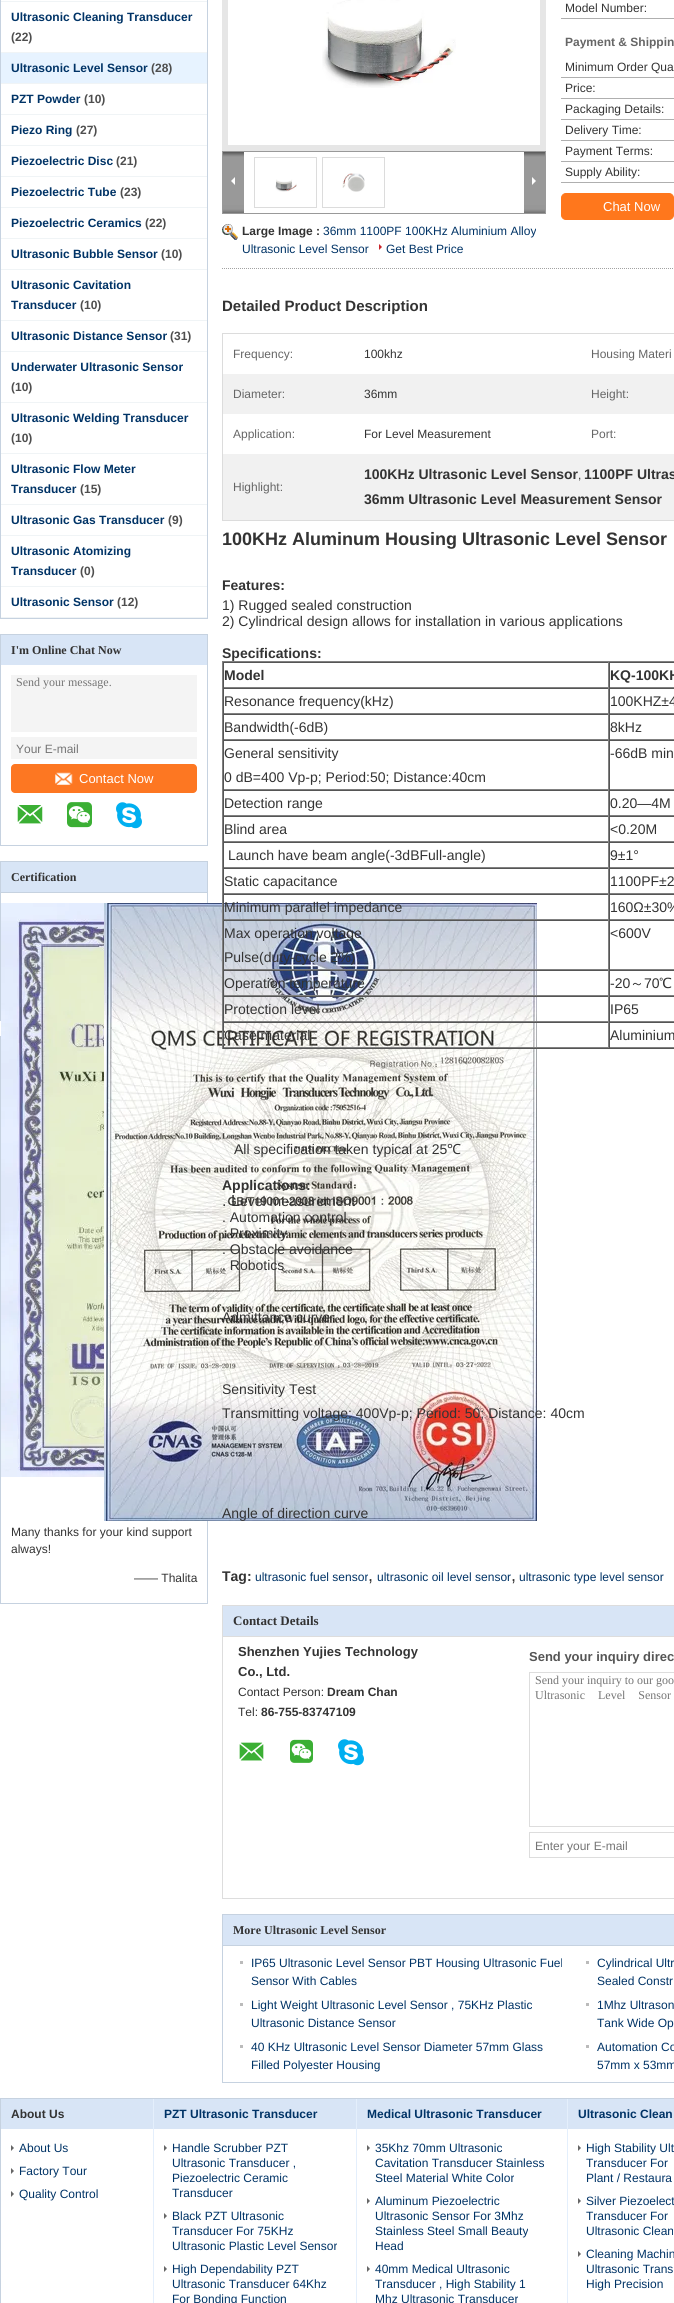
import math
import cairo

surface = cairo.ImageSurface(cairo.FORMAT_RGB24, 674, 2303)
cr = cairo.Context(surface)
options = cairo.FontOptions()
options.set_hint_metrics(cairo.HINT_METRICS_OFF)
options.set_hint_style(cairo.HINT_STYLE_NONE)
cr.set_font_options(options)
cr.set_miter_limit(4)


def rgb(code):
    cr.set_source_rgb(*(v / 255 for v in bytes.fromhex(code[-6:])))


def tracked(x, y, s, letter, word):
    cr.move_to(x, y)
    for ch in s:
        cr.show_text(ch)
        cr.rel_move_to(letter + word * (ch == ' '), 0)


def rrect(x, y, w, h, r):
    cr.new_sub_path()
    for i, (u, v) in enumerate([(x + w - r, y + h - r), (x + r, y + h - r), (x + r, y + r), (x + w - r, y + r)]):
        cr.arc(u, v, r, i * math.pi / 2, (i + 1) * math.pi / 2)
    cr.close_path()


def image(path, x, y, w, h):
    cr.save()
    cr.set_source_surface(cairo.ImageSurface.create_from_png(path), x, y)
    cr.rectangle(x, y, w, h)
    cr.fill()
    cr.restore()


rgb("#ffffff")
cr.paint()
cr.rectangle(0.5, -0.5, 207, 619)
rgb("#c6d2e0")
cr.set_line_width(1)
cr.stroke()
for x, y, w, h, color in [
    (1, 1, 206, 1, "#f0f4f6"),
    (1, 52, 206, 1, "#f0f4f6"),
    (1, 53, 206, 30, "#e7f3ff"),
    (1, 83, 206, 1, "#f0f4f6"),
    (1, 114, 206, 1, "#f0f4f6"),
    (1, 145, 206, 1, "#f0f4f6"),
    (1, 176, 206, 1, "#f0f4f6"),
    (1, 207, 206, 1, "#f0f4f6"),
    (1, 238, 206, 1, "#f0f4f6"),
    (1, 269, 206, 1, "#f0f4f6"),
    (1, 320, 206, 1, "#f0f4f6"),
    (1, 351, 206, 1, "#f0f4f6"),
    (1, 402, 206, 1, "#f0f4f6"),
    (1, 453, 206, 1, "#f0f4f6"),
    (1, 504, 206, 1, "#f0f4f6"),
    (1, 535, 206, 1, "#f0f4f6"),
    (1, 586, 206, 1, "#f0f4f6"),
    (1, 617, 206, 1, "#f0f4f6"),
]:
    rgb(color)
    cr.rectangle(x, y, w, h)
    cr.fill()
cr.rectangle(0.5, 634.5, 207, 211)
rgb("#c6d2e0")
cr.stroke()
for x, y, w, h, color in [
    (1, 635, 206, 30, "#d8e5f6"),
    (11, 675, 186, 57, "#f4f4f4"),
    (11, 737, 186, 22, "#f4f4f4"),
]:
    rgb(color)
    cr.rectangle(x, y, w, h)
    cr.fill()
rgb("#fd7722")
rrect(11, 764, 186, 29, 4)
cr.fill()
image("img/1.png", 55, 772, 18, 13)
image("img/2.png", 17, 805, 26, 19)
image("img/3.png", 67, 802, 25, 26)
image("img/4.png", 116, 802, 26, 27)
cr.rectangle(0.5, 861.5, 207, 159)
rgb("#c6d2e0")
cr.stroke()
rgb("#d8e5f6")
cr.rectangle(1, 862, 206, 30)
cr.fill()
rgb("#c6d2e0")
cr.rectangle(1, 892, 206, 1)
cr.fill()
cr.rectangle(0.5, 1036.5, 207, 567)
cr.stroke()
image("img/5.png", 1, 903, 103, 574)
image("img/6.png", 104, 903, 433, 618)
cr.new_path()
cr.move_to(222, 268.5)
cr.line_to(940, 268.5)
rgb("#a2a2a2")
cr.set_dash([1, 1])
cr.stroke()
for x, y, w, h, color in [
    (561, 18, 113, 1, "#afafaf"),
    (561, 77, 113, 1, "#afafaf"),
    (561, 98, 113, 1, "#afafaf"),
    (561, 119, 113, 1, "#afafaf"),
    (561, 140, 113, 1, "#afafaf"),
    (561, 161, 113, 1, "#afafaf"),
    (561, 182, 113, 1, "#afafaf"),
]:
    rgb(color)
    cr.rectangle(x, y, w, h)
    cr.fill()
rgb("#ff771c")
rrect(561.5, 193.5, 112, 26, 4.5)
cr.fill_preserve()
cr.set_dash([])
cr.stroke()
cr.rectangle(225, -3, 318, 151)
rgb("#e6e6e6")
cr.set_line_width(6)
cr.stroke()
image("img/7.png", 322, 0, 134, 88)
cr.rectangle(222.5, 151.5, 323, 62)
rgb("#999999")
cr.set_line_width(1)
cr.stroke()
image("img/8.png", 223, 152, 21, 61)
rgb("#ffffff")
cr.new_path()
cr.move_to(235, 177)
cr.line_to(235, 185)
cr.line_to(231, 181)
cr.close_path()
cr.fill()
cr.rectangle(254.5, 157.5, 62, 50)
rgb("#dcdcdc")
cr.stroke()
image("img/9.png", 275, 179, 22, 13)
cr.rectangle(322.5, 157.5, 62, 50)
cr.stroke()
image("img/10.png", 342, 173, 23, 19)
image("img/8.png", 524, 152, 21, 61)
rgb("#ffffff")
cr.new_path()
cr.move_to(532, 185)
cr.line_to(532, 177)
cr.line_to(536, 181)
cr.close_path()
cr.fill()
image("img/11.png", 222, 224, 16, 16)
rgb("#c9242b")
cr.new_path()
cr.move_to(379, 250)
cr.line_to(379, 244)
cr.line_to(382, 247)
cr.close_path()
cr.fill()
cr.rectangle(222.5, 333.5, 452, 187)
rgb("#dcdcdc")
cr.stroke()
for x, y, w, h, color in [
    (223, 374, 451, 40, "#f1f1f1"),
    (223, 454, 451, 66, "#f1f1f1"),
    (222, 661, 452, 1, "#808080"),
    (222, 1048, 452, 1, "#555555"),
    (222, 661, 1, 388, "#808080"),
    (223, 662, 451, 1, "#555555"),
    (608, 662, 1, 26, "#808080"),
    (223, 687, 451, 1, "#808080"),
    (223, 662, 1, 26, "#555555"),
    (609, 662, 1, 26, "#555555"),
    (223, 688, 451, 1, "#555555"),
    (608, 688, 1, 26, "#808080"),
    (223, 713, 451, 1, "#808080"),
    (223, 688, 1, 26, "#555555"),
    (609, 688, 1, 26, "#555555"),
    (223, 714, 451, 1, "#555555"),
    (608, 714, 1, 26, "#808080"),
    (223, 739, 451, 1, "#808080"),
    (223, 714, 1, 26, "#555555"),
    (609, 714, 1, 26, "#555555"),
    (223, 740, 451, 1, "#555555"),
    (608, 740, 1, 50, "#808080"),
    (223, 789, 451, 1, "#808080"),
    (223, 740, 1, 50, "#555555"),
    (609, 740, 1, 50, "#555555"),
    (223, 790, 451, 1, "#555555"),
    (608, 790, 1, 26, "#808080"),
    (223, 815, 451, 1, "#808080"),
    (223, 790, 1, 26, "#555555"),
    (609, 790, 1, 26, "#555555"),
    (223, 816, 451, 1, "#555555"),
    (608, 816, 1, 26, "#808080"),
    (223, 841, 451, 1, "#808080"),
    (223, 816, 1, 26, "#555555"),
    (609, 816, 1, 26, "#555555"),
    (223, 842, 451, 1, "#555555"),
    (608, 842, 1, 26, "#808080"),
    (223, 867, 451, 1, "#808080"),
    (223, 842, 1, 26, "#555555"),
    (609, 842, 1, 26, "#555555"),
    (223, 868, 451, 1, "#555555"),
    (608, 868, 1, 26, "#808080"),
    (223, 893, 451, 1, "#808080"),
    (223, 868, 1, 26, "#555555"),
    (609, 868, 1, 26, "#555555"),
    (223, 894, 451, 1, "#555555"),
    (608, 894, 1, 26, "#808080"),
    (223, 919, 451, 1, "#808080"),
    (223, 894, 1, 26, "#555555"),
    (609, 894, 1, 26, "#555555"),
    (223, 920, 451, 1, "#555555"),
    (608, 920, 1, 50, "#808080"),
    (223, 969, 451, 1, "#808080"),
    (223, 920, 1, 50, "#555555"),
    (609, 920, 1, 50, "#555555"),
    (223, 970, 451, 1, "#555555"),
    (608, 970, 1, 26, "#808080"),
    (223, 995, 451, 1, "#808080"),
    (223, 970, 1, 26, "#555555"),
    (609, 970, 1, 26, "#555555"),
    (223, 996, 451, 1, "#555555"),
    (608, 996, 1, 26, "#808080"),
    (223, 1021, 451, 1, "#808080"),
    (223, 996, 1, 26, "#555555"),
    (609, 996, 1, 26, "#555555"),
    (223, 1022, 451, 1, "#555555"),
    (608, 1022, 1, 26, "#808080"),
    (223, 1047, 451, 1, "#808080"),
    (223, 1022, 1, 26, "#555555"),
    (609, 1022, 1, 26, "#555555"),
]:
    rgb(color)
    cr.rectangle(x, y, w, h)
    cr.fill()
rgb("#d8e5f6")
cr.rectangle(222.5, 1605.5, 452, 31)
cr.fill_preserve()
rgb("#dddddd")
cr.stroke()
cr.rectangle(222, 1898, 452, 1)
cr.fill()
cr.rectangle(222, 1637, 1, 262)
cr.fill()
image("img/12.png", 239, 1742, 25, 19)
image("img/13.png", 290, 1739, 23, 24)
image("img/4.png", 338, 1739, 26, 27)
cr.rectangle(529.5, 1672.5, 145, 154)
cr.stroke()
cr.rectangle(529.5, 1832.5, 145, 25)
cr.stroke()
rgb("#d8e5f6")
cr.rectangle(222.5, 1914.5, 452, 31)
cr.fill_preserve()
rgb("#c6d2e0")
cr.stroke()
for x, y, w, h, color in [
    (222, 2082, 452, 1, "#c6d2e0"),
    (222, 1946, 1, 137, "#c6d2e0"),
    (240, 1961, 3, 3, "#bbbbbb"),
    (586, 1961, 3, 3, "#bbbbbb"),
    (240, 2003, 3, 3, "#bbbbbb"),
    (586, 2003, 3, 3, "#bbbbbb"),
    (240, 2045, 3, 3, "#bbbbbb"),
    (586, 2045, 3, 3, "#bbbbbb"),
]:
    rgb(color)
    cr.rectangle(x, y, w, h)
    cr.fill()
cr.rectangle(0.5, 2098.5, 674, 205)
rgb("#c6d2e0")
cr.stroke()
rgb("#e4effc")
cr.rectangle(153, 2099, 1, 204)
cr.fill()
rgb("#d8e5f6")
cr.rectangle(1, 2099, 152, 30)
cr.fill()
rgb("#666666")
cr.new_path()
cr.move_to(11, 2151)
cr.line_to(11, 2145)
cr.line_to(14, 2148)
cr.close_path()
cr.fill()
cr.new_path()
cr.move_to(11, 2174)
cr.line_to(11, 2168)
cr.line_to(14, 2171)
cr.close_path()
cr.fill()
cr.new_path()
cr.move_to(11, 2197)
cr.line_to(11, 2191)
cr.line_to(14, 2194)
cr.close_path()
cr.fill()
rgb("#e4effc")
cr.rectangle(356, 2099, 1, 204)
cr.fill()
rgb("#d8e5f6")
cr.rectangle(154, 2099, 202, 30)
cr.fill()
rgb("#666666")
cr.new_path()
cr.move_to(164, 2151)
cr.line_to(164, 2145)
cr.line_to(167, 2148)
cr.close_path()
cr.fill()
cr.new_path()
cr.move_to(164, 2219)
cr.line_to(164, 2213)
cr.line_to(167, 2216)
cr.close_path()
cr.fill()
cr.new_path()
cr.move_to(164, 2272)
cr.line_to(164, 2266)
cr.line_to(167, 2269)
cr.close_path()
cr.fill()
rgb("#e4effc")
cr.rectangle(567, 2099, 1, 204)
cr.fill()
rgb("#d8e5f6")
cr.rectangle(357, 2099, 210, 30)
cr.fill()
rgb("#666666")
cr.new_path()
cr.move_to(367, 2151)
cr.line_to(367, 2145)
cr.line_to(370, 2148)
cr.close_path()
cr.fill()
cr.new_path()
cr.move_to(367, 2204)
cr.line_to(367, 2198)
cr.line_to(370, 2201)
cr.close_path()
cr.fill()
cr.new_path()
cr.move_to(367, 2272)
cr.line_to(367, 2266)
cr.line_to(370, 2269)
cr.close_path()
cr.fill()
rgb("#d8e5f6")
cr.rectangle(568, 2099, 106, 30)
cr.fill()
rgb("#666666")
cr.new_path()
cr.move_to(578, 2151)
cr.line_to(578, 2145)
cr.line_to(581, 2148)
cr.close_path()
cr.fill()
cr.new_path()
cr.move_to(578, 2204)
cr.line_to(578, 2198)
cr.line_to(581, 2201)
cr.close_path()
cr.fill()
cr.new_path()
cr.move_to(578, 2257)
cr.line_to(578, 2251)
cr.line_to(581, 2254)
cr.close_path()
cr.fill()
cr.select_font_face("Liberation Sans", cairo.FONT_SLANT_NORMAL, cairo.FONT_WEIGHT_BOLD)
cr.set_font_size(12)
rgb("#003366")
cr.move_to(11, 21)
cr.show_text("Ultrasonic Cleaning Transducer")
rgb("#4e4e4e")
cr.move_to(11, 41)
cr.show_text("(22)")
rgb("#003366")
cr.move_to(11, 72)
cr.show_text("Ultrasonic Level Sensor")
rgb("#4e4e4e")
cr.move_to(151, 72)
cr.show_text("(28)")
rgb("#003366")
cr.move_to(11, 103)
cr.show_text("PZT Powder")
rgb("#4e4e4e")
cr.move_to(84, 103)
cr.show_text("(10)")
rgb("#003366")
cr.move_to(11, 134)
cr.show_text("Piezo Ring")
rgb("#4e4e4e")
cr.move_to(76, 134)
cr.show_text("(27)")
rgb("#003366")
cr.move_to(11, 165)
cr.show_text("Piezoelectric Disc")
rgb("#4e4e4e")
cr.move_to(116, 165)
cr.show_text("(21)")
rgb("#003366")
cr.move_to(11, 196)
cr.show_text("Piezoelectric Tube")
rgb("#4e4e4e")
cr.move_to(120, 196)
cr.show_text("(23)")
rgb("#003366")
cr.move_to(11, 227)
cr.show_text("Piezoelectric Ceramics")
rgb("#4e4e4e")
cr.move_to(145, 227)
cr.show_text("(22)")
rgb("#003366")
cr.move_to(11, 258)
cr.show_text("Ultrasonic Bubble Sensor")
rgb("#4e4e4e")
cr.move_to(161, 258)
cr.show_text("(10)")
rgb("#003366")
cr.move_to(11, 289)
cr.show_text("Ultrasonic Cavitation")
cr.move_to(11, 309)
cr.show_text("Transducer")
rgb("#4e4e4e")
cr.move_to(80, 309)
cr.show_text("(10)")
rgb("#003366")
cr.move_to(11, 340)
cr.show_text("Ultrasonic Distance Sensor")
rgb("#4e4e4e")
cr.move_to(170, 340)
cr.show_text("(31)")
rgb("#003366")
cr.move_to(11, 371)
cr.show_text("Underwater Ultrasonic Sensor")
rgb("#4e4e4e")
cr.move_to(11, 391)
cr.show_text("(10)")
rgb("#003366")
cr.move_to(11, 422)
cr.show_text("Ultrasonic Welding Transducer")
rgb("#4e4e4e")
cr.move_to(11, 442)
cr.show_text("(10)")
rgb("#003366")
cr.move_to(11, 473)
cr.show_text("Ultrasonic Flow Meter")
cr.move_to(11, 493)
cr.show_text("Transducer")
rgb("#4e4e4e")
cr.move_to(80, 493)
cr.show_text("(15)")
rgb("#003366")
cr.move_to(11, 524)
cr.show_text("Ultrasonic Gas Transducer")
rgb("#4e4e4e")
cr.move_to(168, 524)
cr.show_text("(9)")
rgb("#003366")
cr.move_to(11, 555)
cr.show_text("Ultrasonic Atomizing")
cr.move_to(11, 575)
cr.show_text("Transducer")
rgb("#4e4e4e")
cr.move_to(80, 575)
cr.show_text("(0)")
rgb("#003366")
cr.move_to(11, 606)
cr.show_text("Ultrasonic Sensor")
rgb("#4e4e4e")
cr.move_to(117, 606)
cr.show_text("(12)")
cr.select_font_face("Liberation Serif", cairo.FONT_SLANT_NORMAL, cairo.FONT_WEIGHT_BOLD)
rgb("#333333")
cr.move_to(11, 654)
cr.show_text("I'm Online Chat Now")
cr.select_font_face("Liberation Serif")
rgb("#757575")
cr.move_to(16, 686)
cr.show_text("Send your message.")
cr.select_font_face("Liberation Sans")
cr.move_to(16, 753)
cr.show_text("Your E-mail")
cr.set_font_size(13)
rgb("#ffffff")
cr.move_to(79, 783)
cr.show_text("Contact Now")
cr.select_font_face("Liberation Serif", cairo.FONT_SLANT_NORMAL, cairo.FONT_WEIGHT_BOLD)
cr.set_font_size(12)
rgb("#333333")
cr.move_to(11, 881)
cr.show_text("Certification")
cr.select_font_face("Liberation Sans")
for x, y, s in [
    (11, 1536, "Many thanks for your kind support"),
    (11, 1553, "always!"),
    (134, 1582, "—— Thalita"),
    (565, 12, "Model Number:"),
]:
    cr.move_to(x, y)
    cr.show_text(s)
cr.select_font_face("Liberation Sans", cairo.FONT_SLANT_NORMAL, cairo.FONT_WEIGHT_BOLD)
rgb("#666666")
cr.move_to(565, 46)
cr.show_text("Payment & Shippin")
cr.select_font_face("Liberation Sans")
rgb("#333333")
for x, y, s in [
    (565, 71, "Minimum Order Qua"),
    (565, 92, "Price:"),
    (565, 113, "Packaging Details:"),
    (565, 134, "Delivery Time:"),
    (565, 155, "Payment Terms:"),
    (565, 176, "Supply Ability:"),
]:
    cr.move_to(x, y)
    cr.show_text(s)
cr.set_font_size(13)
rgb("#ffffff")
cr.move_to(603, 211)
cr.show_text("Chat Now")
cr.select_font_face("Liberation Sans", cairo.FONT_SLANT_NORMAL, cairo.FONT_WEIGHT_BOLD)
cr.set_font_size(12)
rgb("#333333")
cr.move_to(242, 235)
cr.show_text("Large Image :")
cr.select_font_face("Liberation Sans")
rgb("#003366")
for x, y, s in [
    (323, 235, "36mm 1100PF 100KHz Aluminium Alloy"),
    (242, 253, "Ultrasonic Level Sensor"),
    (386, 253, "Get Best Price"),
]:
    cr.move_to(x, y)
    cr.show_text(s)
cr.select_font_face("Liberation Sans", cairo.FONT_SLANT_NORMAL, cairo.FONT_WEIGHT_BOLD)
cr.set_font_size(15)
rgb("#333333")
cr.move_to(222, 311)
cr.show_text("Detailed Product Description")
cr.select_font_face("Liberation Sans")
cr.set_font_size(12)
rgb("#666666")
cr.move_to(233, 358)
cr.show_text("Frequency:")
rgb("#333333")
cr.move_to(364, 358)
cr.show_text("100khz")
rgb("#666666")
cr.move_to(591, 358)
cr.show_text("Housing Materi")
cr.move_to(233, 398)
cr.show_text("Diameter:")
rgb("#333333")
cr.move_to(364, 398)
cr.show_text("36mm")
rgb("#666666")
cr.move_to(591, 398)
cr.show_text("Height:")
cr.move_to(233, 438)
cr.show_text("Application:")
rgb("#333333")
cr.move_to(364, 438)
cr.show_text("For Level Measurement")
rgb("#666666")
cr.move_to(591, 438)
cr.show_text("Port:")
cr.move_to(233, 491)
cr.show_text("Highlight:")
cr.select_font_face("Liberation Sans", cairo.FONT_SLANT_NORMAL, cairo.FONT_WEIGHT_BOLD)
cr.set_font_size(14)
rgb("#333333")
cr.move_to(364, 479)
cr.show_text("100KHz Ultrasonic Level Sensor")
cr.select_font_face("Liberation Sans")
cr.set_font_size(12)
cr.move_to(578, 479)
cr.show_text(",")
cr.select_font_face("Liberation Sans", cairo.FONT_SLANT_NORMAL, cairo.FONT_WEIGHT_BOLD)
cr.set_font_size(14)
cr.move_to(584, 479)
cr.show_text("1100PF Ultras")
cr.move_to(364, 504)
cr.show_text("36mm Ultrasonic Level Measurement Sensor")
cr.set_font_size(18)
cr.move_to(222, 545)
cr.show_text("100KHz Aluminum Housing Ultrasonic Level Sensor")
cr.set_font_size(14)
cr.move_to(222, 590)
cr.show_text("Features:")
cr.select_font_face("Liberation Sans")
cr.move_to(222, 610)
cr.show_text("1) Rugged sealed construction")
cr.move_to(222, 626)
cr.show_text("2) Cylindrical design allows for installation in various applications")
cr.select_font_face("Liberation Sans", cairo.FONT_SLANT_NORMAL, cairo.FONT_WEIGHT_BOLD)
for x, y, s in [
    (222, 658, "Specifications:"),
    (224, 680, "Model"),
    (610, 680, "KQ-100KH"),
]:
    cr.move_to(x, y)
    cr.show_text(s)
cr.select_font_face("Liberation Sans")
for x, y, s in [
    (224, 706, "Resonance frequency(kHz)"),
    (610, 706, "100KHZ±4"),
    (224, 732, "Bandwidth(-6dB)"),
    (610, 732, "8kHz"),
    (224, 758, "General sensitivity"),
    (224, 782, "0 dB=400 Vp-p; Period:50; Distance:40cm"),
    (610, 758, "-66dB min"),
    (224, 808, "Detection range"),
    (610, 808, "0.20—4M"),
    (224, 834, "Blind area"),
    (610, 834, "<0.20M"),
    (228, 860, "Launch have beam angle(-3dBFull-angle)"),
    (610, 860, "9±1°"),
    (224, 886, "Static capacitance"),
    (610, 886, "1100PF±2"),
    (224, 912, "Minimum parallel impedance"),
    (610, 912, "160Ω±30%"),
    (224, 938, "Max operation voltage"),
    (224, 962, "Pulse(duty-cycle 2%)"),
    (610, 938, "<600V"),
    (224, 988, "Operation temperature"),
    (610, 988, "-20"),
]:
    cr.move_to(x, y)
    cr.show_text(s)
cr.select_font_face("WenQuanYi Zen Hei Medium")
cr.move_to(630, 988)
cr.show_text("～")
cr.select_font_face("Liberation Sans")
cr.move_to(644, 988)
cr.show_text("70")
cr.select_font_face("WenQuanYi Zen Hei Medium")
cr.move_to(659, 988)
cr.show_text("℃")
cr.select_font_face("Liberation Sans")
for x, y, s in [
    (224, 1014, "Protection level"),
    (610, 1014, "IP65"),
    (224, 1040, "Case material"),
    (610, 1040, "Aluminium"),
    (234, 1154, "All specification taken typical at 25"),
]:
    cr.move_to(x, y)
    cr.show_text(s)
cr.select_font_face("Noto Sans")
cr.move_to(447, 1154)
cr.show_text("℃")
cr.select_font_face("Liberation Sans", cairo.FONT_SLANT_NORMAL, cairo.FONT_WEIGHT_BOLD)
cr.move_to(222, 1190)
cr.show_text("Applications:")
cr.select_font_face("Liberation Sans")
cr.set_font_size(16)
cr.move_to(222, 1206)
cr.show_text(". L")
cr.set_font_size(14)
for x, y, s in [
    (240, 1206, "evel measurement"),
    (222, 1222, ". Automation control"),
    (222, 1238, ". Proximity"),
    (222, 1254, ". Obstacle avoidance"),
    (222, 1270, ". Robotics"),
    (222, 1322, "Admittance curve"),
    (222, 1394, "Sensitivity Test"),
    (222, 1418, "Transmitting voltage: 400Vp-p; Period: 50; Distance: 40cm"),
    (222, 1518, "Angle of direction curve"),
]:
    cr.move_to(x, y)
    cr.show_text(s)
cr.select_font_face("Liberation Sans", cairo.FONT_SLANT_NORMAL, cairo.FONT_WEIGHT_BOLD)
cr.move_to(222, 1581)
cr.show_text("Tag:")
cr.select_font_face("Liberation Sans")
cr.set_font_size(12)
rgb("#003366")
cr.move_to(255, 1581)
cr.show_text("ultrasonic fuel sensor")
cr.set_font_size(18)
rgb("#333333")
cr.move_to(368, 1581)
cr.show_text(",")
cr.set_font_size(12)
rgb("#003366")
cr.move_to(377, 1581)
cr.show_text("ultrasonic oil level sensor")
cr.set_font_size(18)
rgb("#333333")
cr.move_to(511, 1581)
cr.show_text(",")
cr.set_font_size(12)
rgb("#003366")
cr.move_to(519, 1581)
cr.show_text("ultrasonic type level sensor")
cr.select_font_face("Liberation Serif", cairo.FONT_SLANT_NORMAL, cairo.FONT_WEIGHT_BOLD)
cr.set_font_size(13)
rgb("#333333")
cr.move_to(233, 1625)
cr.show_text("Contact Details")
cr.select_font_face("Liberation Sans", cairo.FONT_SLANT_NORMAL, cairo.FONT_WEIGHT_BOLD)
cr.move_to(238, 1656)
cr.show_text("Shenzhen Yujies Technology")
cr.move_to(238, 1676)
cr.show_text("Co., Ltd.")
cr.select_font_face("Liberation Sans")
cr.set_font_size(12)
cr.move_to(238, 1696)
cr.show_text("Contact Person:")
cr.select_font_face("Liberation Sans", cairo.FONT_SLANT_NORMAL, cairo.FONT_WEIGHT_BOLD)
cr.move_to(327, 1696)
cr.show_text("Dream Chan")
cr.select_font_face("Liberation Sans")
cr.move_to(238, 1716)
cr.show_text("Tel:")
cr.select_font_face("Liberation Sans", cairo.FONT_SLANT_NORMAL, cairo.FONT_WEIGHT_BOLD)
cr.move_to(261, 1716)
cr.show_text("86-755-83747109")
cr.set_font_size(13)
rgb("#555555")
cr.move_to(529, 1661)
cr.show_text("Send your inquiry direc")
cr.select_font_face("Liberation Serif")
cr.set_font_size(12)
rgb("#757575")
cr.move_to(535, 1684)
cr.show_text("Send your inquiry to our goo")
tracked(535, 1699, "Ultrasonic Level Sensor", 0, 10)
cr.select_font_face("Liberation Sans")
cr.move_to(535, 1850)
cr.show_text("Enter your E-mail")
cr.select_font_face("Liberation Serif", cairo.FONT_SLANT_NORMAL, cairo.FONT_WEIGHT_BOLD)
rgb("#333333")
cr.move_to(233, 1934)
cr.show_text("More Ultrasonic Level Sensor")
cr.select_font_face("Liberation Sans")
rgb("#003366")
for x, y, s in [
    (251, 1967, "IP65 Ultrasonic Level Sensor PBT Housing Ultrasonic Fuel"),
    (251, 1985, "Sensor With Cables"),
    (597, 1967, "Cylindrical Ultr"),
    (597, 1985, "Sealed Constr"),
    (251, 2009, "Light Weight Ultrasonic Level Sensor , 75KHz Plastic"),
    (251, 2027, "Ultrasonic Distance Sensor"),
    (597, 2009, "1Mhz Ultrason"),
    (597, 2027, "Tank Wide Op"),
    (251, 2051, "40 KHz Ultrasonic Level Sensor Diameter 57mm Glass"),
    (251, 2069, "Filled Polyester Housing"),
    (597, 2051, "Automation Co"),
    (597, 2069, "57mm x 53mm"),
]:
    cr.move_to(x, y)
    cr.show_text(s)
cr.select_font_face("Liberation Sans", cairo.FONT_SLANT_NORMAL, cairo.FONT_WEIGHT_BOLD)
rgb("#333333")
cr.move_to(11, 2118)
cr.show_text("About Us")
cr.select_font_face("Liberation Sans")
rgb("#003366")
for x, y, s in [
    (19, 2152, "About Us"),
    (19, 2175, "Factory Tour"),
    (19, 2198, "Quality Control"),
]:
    cr.move_to(x, y)
    cr.show_text(s)
cr.select_font_face("Liberation Sans", cairo.FONT_SLANT_NORMAL, cairo.FONT_WEIGHT_BOLD)
cr.move_to(164, 2118)
cr.show_text("PZT Ultrasonic Transducer")
cr.select_font_face("Liberation Sans")
for x, y, s in [
    (172, 2152, "Handle Scrubber PZT"),
    (172, 2167, "Ultrasonic Transducer ,"),
    (172, 2182, "Piezoelectric Ceramic"),
    (172, 2197, "Transducer"),
    (172, 2220, "Black PZT Ultrasonic"),
    (172, 2235, "Transducer For 75KHz"),
    (172, 2250, "Ultrasonic Plastic Level Sensor"),
    (172, 2273, "High Dependability PZT"),
    (172, 2288, "Ultrasonic Transducer 64Khz"),
    (172, 2303, "For Bonding Function"),
]:
    cr.move_to(x, y)
    cr.show_text(s)
cr.select_font_face("Liberation Sans", cairo.FONT_SLANT_NORMAL, cairo.FONT_WEIGHT_BOLD)
cr.move_to(367, 2118)
cr.show_text("Medical Ultrasonic Transducer")
cr.select_font_face("Liberation Sans")
for x, y, s in [
    (375, 2152, "35Khz 70mm Ultrasonic"),
    (375, 2167, "Cavitation Transducer Stainless"),
    (375, 2182, "Steel Material White Color"),
    (375, 2205, "Aluminum Piezoelectric"),
    (375, 2220, "Ultrasonic Sensor For 3Mhz"),
    (375, 2235, "Stainless Steel Small Beauty"),
    (375, 2250, "Head"),
    (375, 2273, "40mm Medical Ultrasonic"),
    (375, 2288, "Transducer , High Stability 1"),
    (375, 2303, "Mhz Ultrasonic Transducer"),
]:
    cr.move_to(x, y)
    cr.show_text(s)
cr.select_font_face("Liberation Sans", cairo.FONT_SLANT_NORMAL, cairo.FONT_WEIGHT_BOLD)
cr.move_to(578, 2118)
cr.show_text("Ultrasonic Clean")
cr.select_font_face("Liberation Sans")
for x, y, s in [
    (586, 2152, "High Stability Ult"),
    (586, 2167, "Transducer For"),
    (586, 2182, "Plant / Restaura"),
    (586, 2205, "Silver Piezoelect"),
    (586, 2220, "Transducer For"),
    (586, 2235, "Ultrasonic Clean"),
    (586, 2258, "Cleaning Machin"),
    (586, 2273, "Ultrasonic Trans"),
    (586, 2288, "High Precision"),
]:
    cr.move_to(x, y)
    cr.show_text(s)
surface.write_to_png("page.png")
